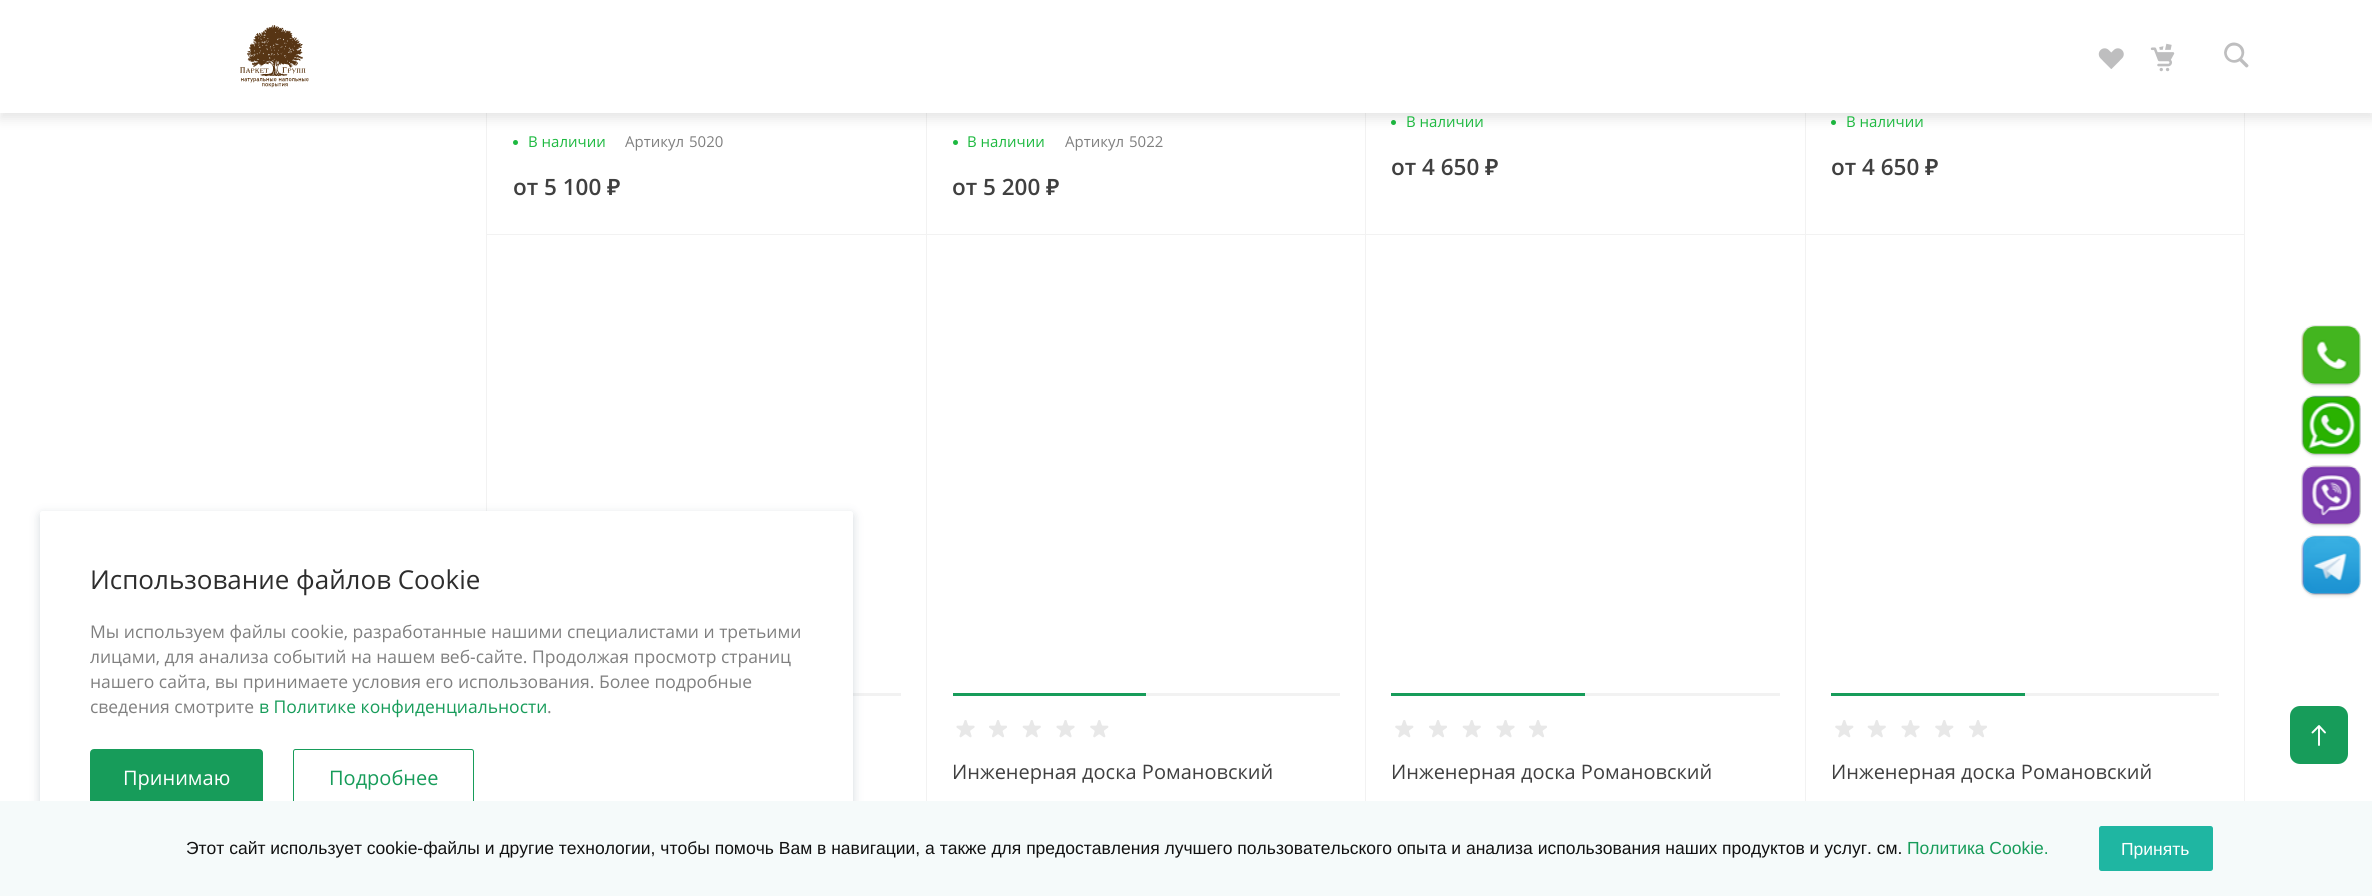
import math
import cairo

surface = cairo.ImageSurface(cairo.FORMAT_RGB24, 2372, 896)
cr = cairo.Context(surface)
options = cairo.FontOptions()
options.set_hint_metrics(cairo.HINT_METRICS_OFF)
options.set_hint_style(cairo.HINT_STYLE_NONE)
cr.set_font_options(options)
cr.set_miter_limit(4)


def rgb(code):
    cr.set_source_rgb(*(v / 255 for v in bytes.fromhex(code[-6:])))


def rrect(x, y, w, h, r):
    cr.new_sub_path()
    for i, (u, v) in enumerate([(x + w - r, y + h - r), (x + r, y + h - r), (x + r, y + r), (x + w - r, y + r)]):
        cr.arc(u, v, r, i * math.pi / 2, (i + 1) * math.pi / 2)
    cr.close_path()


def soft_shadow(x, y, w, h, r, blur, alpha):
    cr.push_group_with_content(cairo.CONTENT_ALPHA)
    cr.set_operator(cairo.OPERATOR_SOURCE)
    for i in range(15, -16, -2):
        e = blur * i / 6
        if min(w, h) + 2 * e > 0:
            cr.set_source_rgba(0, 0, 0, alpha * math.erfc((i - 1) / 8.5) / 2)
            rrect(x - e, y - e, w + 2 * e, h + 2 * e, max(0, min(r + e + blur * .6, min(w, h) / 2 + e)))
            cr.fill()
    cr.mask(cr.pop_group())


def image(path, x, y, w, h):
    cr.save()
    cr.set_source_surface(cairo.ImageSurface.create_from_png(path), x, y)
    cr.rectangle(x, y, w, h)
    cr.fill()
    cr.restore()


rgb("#ffffff")
cr.paint()
cr.rectangle(486.5, -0.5, 441, 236)
rgb("#f2f2f2")
cr.set_line_width(1)
cr.stroke()
rgb("#ffffff")
cr.rectangle(927, 113, 1, 121)
cr.fill()
cr.rectangle(926.5, -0.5, 439, 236)
rgb("#f2f2f2")
cr.stroke()
cr.rectangle(1365.5, -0.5, 440, 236)
cr.stroke()
rgb("#1db940")
cr.arc(1393.5, 122.5, 2.5, 0, 2 * math.pi)
cr.fill()
cr.rectangle(1805.5, -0.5, 439, 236)
rgb("#f2f2f2")
cr.stroke()
rgb("#1db940")
cr.arc(1833.5, 122.5, 2.5, 0, 2 * math.pi)
cr.fill()
rgb("#000000")
soft_shadow(0, 6, 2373, 113, 0, 6, 0.1)
rgb("#ffffff")
cr.rectangle(0, 0, 2372, 113)
cr.fill()
image("img/1.png", 240, 25, 69, 63)
image("img/2.png", 2098, 48, 26, 21)
image("img/3.png", 2150, 43, 25, 29)
image("img/4.png", 2224, 42, 25, 26)
rgb("#179c5a")
rrect(2291.5, 707.5, 55, 55, 8.5)
cr.fill_preserve()
cr.set_line_width(3)
cr.stroke()
cr.new_path()
cr.move_to(2325, 732.5)
cr.line_to(2319, 726)
cr.line_to(2312.5, 732.5)
cr.move_to(2319, 745)
cr.line_to(2319, 726)
rgb("#ffffff")
cr.set_line_width(1.9)
cr.set_line_cap(cairo.LINE_CAP_ROUND)
cr.set_line_join(cairo.LINE_JOIN_ROUND)
cr.stroke()
rgb("#1db940")
cr.arc(515.5, 142.5, 2.5, 0, 2 * math.pi)
cr.fill()
cr.arc(955.5, 142.5, 2.5, 0, 2 * math.pi)
cr.fill()
rgb("#ffffff")
cr.rectangle(487, 235, 439, 1)
cr.fill()
cr.rectangle(486.5, 234.5, 441, 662)
rgb("#f2f2f2")
cr.set_line_width(1)
cr.set_line_cap(cairo.LINE_CAP_BUTT)
cr.set_line_join(cairo.LINE_JOIN_MITER)
cr.stroke()
cr.rectangle(853, 693, 48, 3)
cr.fill()
rgb("#ffffff")
cr.rectangle(927, 235, 438, 566)
cr.fill()
cr.rectangle(926.5, 234.5, 439, 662)
rgb("#f2f2f2")
cr.stroke()
rgb("#179c5a")
cr.rectangle(953, 693, 193, 3)
cr.fill()
rgb("#f2f2f2")
cr.rectangle(1146, 693, 194, 3)
cr.fill()
image("img/5.png", 956, 720, 19, 18)
image("img/6.png", 989, 720, 18, 18)
image("img/7.png", 1022, 720, 19, 18)
image("img/5.png", 1056, 720, 19, 18)
image("img/8.png", 1090, 720, 19, 18)
rgb("#ffffff")
cr.rectangle(1366, 235, 439, 1)
cr.fill()
cr.rectangle(1365.5, 234.5, 440, 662)
rgb("#f2f2f2")
cr.stroke()
rgb("#179c5a")
cr.rectangle(1391, 693, 194, 3)
cr.fill()
rgb("#f2f2f2")
cr.rectangle(1585, 693, 195, 3)
cr.fill()
image("img/8.png", 1395, 720, 19, 18)
image("img/6.png", 1429, 720, 18, 18)
image("img/7.png", 1462, 720, 19, 18)
image("img/5.png", 1496, 720, 19, 18)
image("img/6.png", 1529, 720, 18, 18)
rgb("#ffffff")
cr.rectangle(1806, 235, 438, 1)
cr.fill()
cr.rectangle(1805.5, 234.5, 439, 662)
rgb("#f2f2f2")
cr.stroke()
rgb("#179c5a")
cr.rectangle(1831, 693, 194, 3)
cr.fill()
rgb("#f2f2f2")
cr.rectangle(2025, 693, 194, 3)
cr.fill()
image("img/8.png", 1835, 720, 19, 18)
image("img/7.png", 1867, 720, 19, 18)
image("img/5.png", 1901, 720, 19, 18)
image("img/8.png", 1935, 720, 19, 18)
image("img/6.png", 1969, 720, 18, 18)
rgb("#000000")
soft_shadow(2306, 334, 50, 50, 9, 2.5, 0.3)
rrect(2301.5, 325.5, 59, 59, 13.5)
cr.set_source_rgba(0, 0, 0, 0.1)
cr.stroke()
image("img/9.png", 2302, 326, 59, 58)
rgb("#000000")
soft_shadow(2306, 404, 50, 50, 9, 2.5, 0.3)
rrect(2301.5, 395.5, 59, 59, 13.5)
cr.set_source_rgba(0, 0, 0, 0.1)
cr.stroke()
image("img/10.png", 2302, 396, 59, 58)
rgb("#000000")
soft_shadow(2306, 474, 50, 50, 9, 2.5, 0.3)
rrect(2301.5, 465.5, 59, 59, 13.5)
cr.set_source_rgba(0, 0, 0, 0.1)
cr.stroke()
image("img/11.png", 2302, 466, 59, 58)
rgb("#000000")
soft_shadow(2306, 544, 50, 50, 9, 2.5, 0.3)
rrect(2301.5, 535.5, 59, 59, 13.5)
cr.set_source_rgba(0, 0, 0, 0.1)
cr.stroke()
image("img/12.png", 2302, 536, 59, 58)
rgb("#223c50")
soft_shadow(40, 514, 813, 345, 2.5, 5, 0.2)
rgb("#ffffff")
rrect(40, 511, 813, 345, 2.5)
cr.fill()
rgb("#179c5a")
rrect(91.5, 750.5, 170, 54, 2.5)
cr.fill_preserve()
cr.set_line_width(3)
cr.stroke()
rrect(293.5, 749.5, 180, 56, 2)
cr.set_line_width(1)
cr.stroke()
rgb("#f5fafa")
cr.rectangle(0, 801, 2372, 95)
cr.fill()
rgb("#1fb6a2")
rrect(2100.5, 827.5, 111, 42, 1)
cr.fill_preserve()
cr.set_line_width(3)
cr.stroke()
cr.select_font_face("Open Sans")
cr.set_font_size(15)
rgb("#1db940")
cr.move_to(528, 147)
cr.show_text("В наличии")
rgb("#808080")
cr.move_to(625, 147)
cr.show_text("Артикул")
cr.move_to(689, 147)
cr.show_text("5020")
cr.select_font_face("Open Sans SemiBold")
cr.set_font_size(22.5)
rgb("#404040")
cr.move_to(513, 195)
cr.show_text("от 5 100")
cr.select_font_face("Noto Sans SemiBold")
cr.move_to(607, 195)
cr.show_text("₽")
cr.select_font_face("Open Sans")
cr.set_font_size(15)
rgb("#1db940")
cr.move_to(967, 147)
cr.show_text("В наличии")
rgb("#808080")
cr.move_to(1065, 147)
cr.show_text("Артикул")
cr.move_to(1129, 147)
cr.show_text("5022")
cr.select_font_face("Open Sans SemiBold")
cr.set_font_size(22.5)
rgb("#404040")
cr.move_to(952, 195)
cr.show_text("от 5 200")
cr.select_font_face("Noto Sans SemiBold")
cr.move_to(1046, 195)
cr.show_text("₽")
cr.select_font_face("Open Sans")
cr.set_font_size(15)
rgb("#1db940")
cr.move_to(1406, 127)
cr.show_text("В наличии")
cr.select_font_face("Open Sans SemiBold")
cr.set_font_size(22.5)
rgb("#404040")
cr.move_to(1391, 175)
cr.show_text("от 4 650")
cr.select_font_face("Noto Sans SemiBold")
cr.move_to(1485, 175)
cr.show_text("₽")
cr.select_font_face("Open Sans")
cr.set_font_size(15)
rgb("#1db940")
cr.move_to(1846, 127)
cr.show_text("В наличии")
cr.select_font_face("Open Sans SemiBold")
cr.set_font_size(22.5)
rgb("#404040")
cr.move_to(1831, 175)
cr.show_text("от 4 650")
cr.select_font_face("Noto Sans SemiBold")
cr.move_to(1925, 175)
cr.show_text("₽")
cr.select_font_face("Open Sans")
cr.set_font_size(20)
for x, y, s in [
    (952, 779, "Инженерная доска Романовский"),
    (1391, 779, "Инженерная доска Романовский"),
    (1831, 779, "Инженерная доска Романовский"),
]:
    cr.move_to(x, y)
    cr.show_text(s)
cr.set_font_size(26)
rgb("#2d2d2d")
cr.move_to(90, 589)
cr.show_text("Использование файлов Cookie")
cr.set_font_size(17.5)
rgb("#808080")
for x, y, s in [
    (90, 638, "Мы используем файлы cookie, разработанные нашими специалистами и третьими"),
    (90, 663, "лицами, для анализа событий на нашем веб-сайте. Продолжая просмотр страниц"),
    (90, 688, "нашего сайта, вы принимаете условия его использования. Более подробные"),
    (90, 713, "сведения смотрите"),
]:
    cr.move_to(x, y)
    cr.show_text(s)
rgb("#179c5a")
cr.move_to(259, 713)
cr.show_text("в Политике конфиденциальности")
rgb("#808080")
cr.move_to(547, 713)
cr.show_text(".")
cr.set_font_size(20)
rgb("#ffffff")
cr.move_to(123, 785)
cr.show_text("Принимаю")
rgb("#179c5a")
cr.move_to(329, 785)
cr.show_text("Подробнее")
cr.select_font_face("Liberation Sans")
cr.set_font_size(17.5)
rgb("#111111")
cr.move_to(186, 854)
cr.show_text("Этот сайт использует cookie-файлы и другие технологии, чтобы помочь Вам в навигации, а также для предоставления лучшего пользовательского опыта и анализа использования наших продуктов и услуг. см.")
rgb("#179c5a")
cr.move_to(1907, 854)
cr.show_text("Политика Cookie.")
rgb("#ffffff")
cr.move_to(2121, 855)
cr.show_text("Принять")
surface.write_to_png("page.png")
